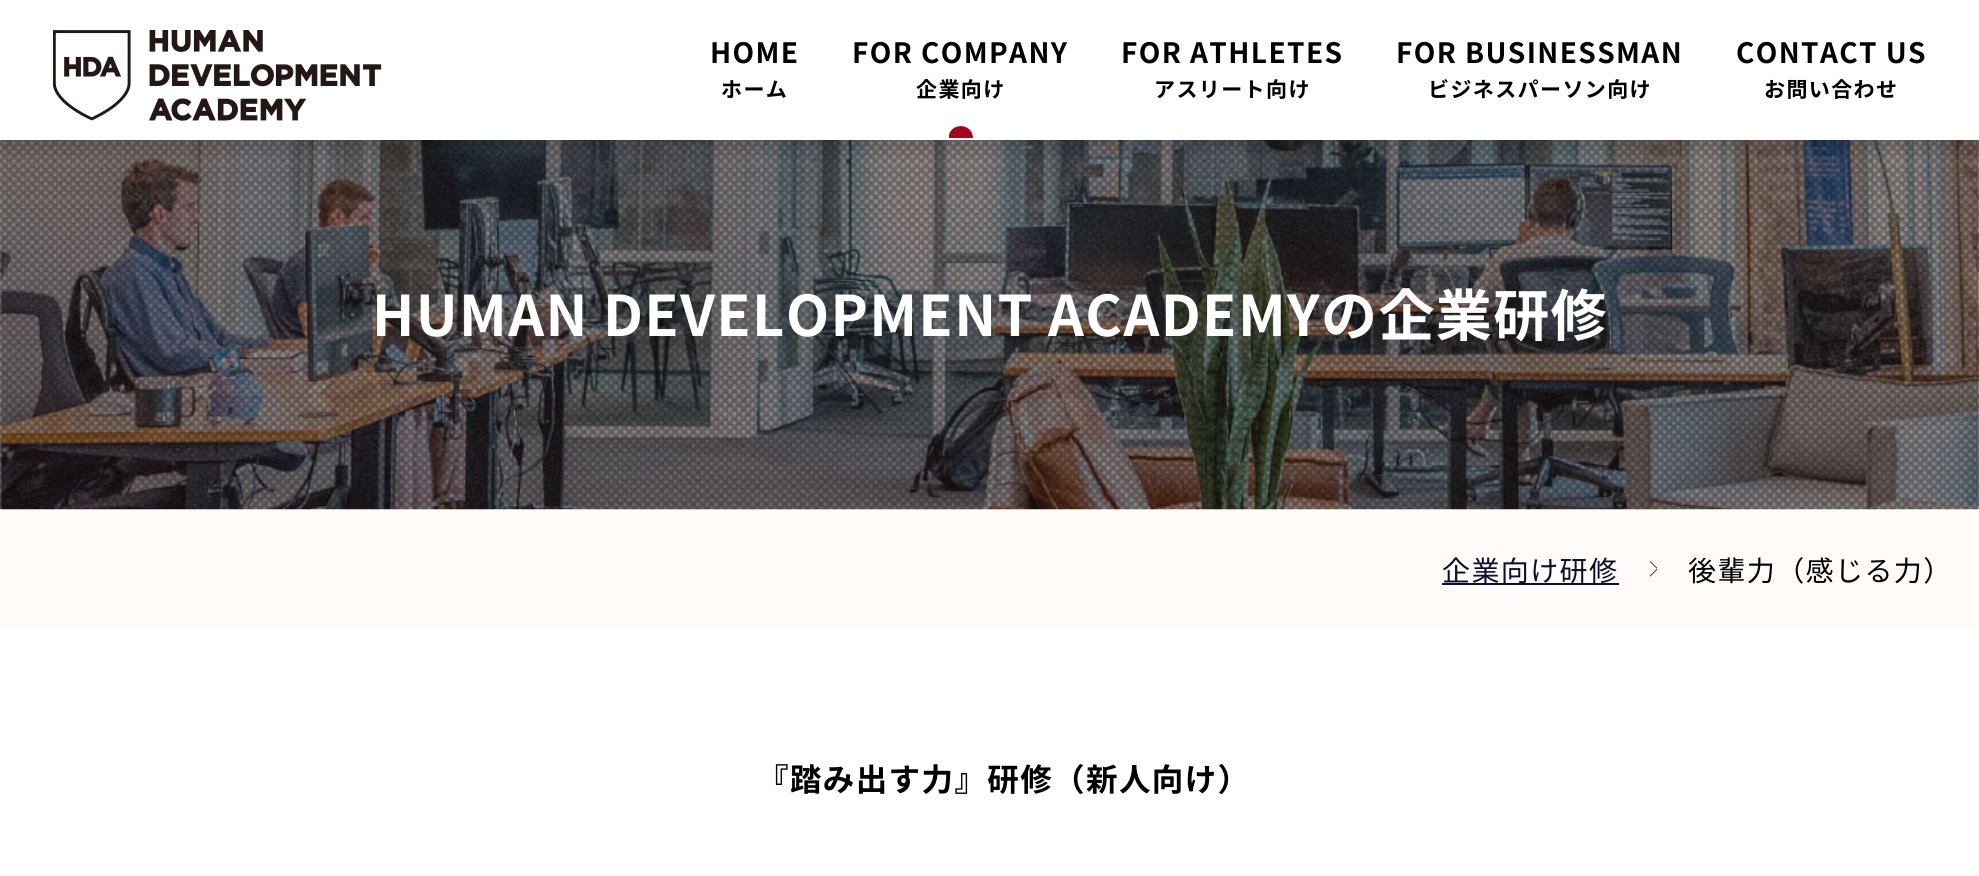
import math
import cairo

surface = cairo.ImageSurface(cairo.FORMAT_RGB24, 1979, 876)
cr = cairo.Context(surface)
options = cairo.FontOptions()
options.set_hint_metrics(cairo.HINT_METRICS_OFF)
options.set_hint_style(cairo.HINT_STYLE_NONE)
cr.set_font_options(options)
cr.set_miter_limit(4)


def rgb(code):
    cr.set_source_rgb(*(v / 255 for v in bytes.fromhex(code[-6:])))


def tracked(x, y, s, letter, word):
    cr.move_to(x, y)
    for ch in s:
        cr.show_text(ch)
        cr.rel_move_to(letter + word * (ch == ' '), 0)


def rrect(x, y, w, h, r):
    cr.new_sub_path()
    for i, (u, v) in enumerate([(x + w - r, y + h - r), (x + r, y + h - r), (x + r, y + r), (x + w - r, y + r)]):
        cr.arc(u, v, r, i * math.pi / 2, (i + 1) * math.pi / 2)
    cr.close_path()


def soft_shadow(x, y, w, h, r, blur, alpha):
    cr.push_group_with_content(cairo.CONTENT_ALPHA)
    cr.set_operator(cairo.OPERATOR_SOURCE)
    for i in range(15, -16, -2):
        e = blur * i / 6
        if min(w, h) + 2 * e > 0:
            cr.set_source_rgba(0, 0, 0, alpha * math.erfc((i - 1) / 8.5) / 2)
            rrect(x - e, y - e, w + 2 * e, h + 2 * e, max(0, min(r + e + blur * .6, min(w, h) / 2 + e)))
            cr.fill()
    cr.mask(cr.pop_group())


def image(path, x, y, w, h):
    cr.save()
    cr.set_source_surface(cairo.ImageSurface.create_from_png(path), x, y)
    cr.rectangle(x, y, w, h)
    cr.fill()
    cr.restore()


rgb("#ffffff")
cr.paint()
rgb("#fffbf8")
cr.rectangle(0, 509, 1979, 119)
cr.fill()
image("img/2.png", 0, 140, 1979, 370)
cr.save()
cr.rectangle(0, 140, 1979, 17)
cr.clip()
rgb("#000000")
soft_shadow(0, 5, 1979, 140, 0, 9, 0.2)
cr.restore()
image("img/1.png", 53, 30, 329, 91)
cr.save()
cr.rectangle(949, 126, 24, 12)
cr.clip()
rgb("#a50319")
cr.new_path()
cr.move_to(948.5, 138.5)
cr.curve_to(948.5, 122, 973, 122, 973, 138.5)
cr.fill()
cr.restore()
rgb("#09102b")
cr.rectangle(1442, 583, 177, 2)
cr.fill()
image("img/3.png", 1650, 561, 7, 16)
cr.select_font_face("Noto Sans JP", cairo.FONT_SLANT_NORMAL, cairo.FONT_WEIGHT_BOLD)
cr.set_font_size(28)
rgb("#000000")
tracked(710, 63, "HOME", 1.4, 0)
cr.set_font_size(21)
tracked(721, 97, "ホーム", 1.4, 0)
cr.set_font_size(28)
tracked(852, 63, "FOR COMPANY", 1.4, 0)
cr.set_font_size(21)
tracked(916, 97, "企業向け", 1.4, 0)
cr.set_font_size(28)
tracked(1121, 63, "FOR ATHLETES", 1.4, 0)
cr.set_font_size(21)
tracked(1154, 97, "アスリート向け", 1.4, 0)
cr.set_font_size(28)
tracked(1396, 63, "FOR BUSINESSMAN", 1.4, 0)
cr.set_font_size(21)
tracked(1428, 97, "ビジネスパーソン向け", 1.4, 0)
cr.set_font_size(28)
tracked(1736, 63, "CONTACT US", 1.4, 0)
cr.set_font_size(21)
tracked(1764, 97, "お問い合わせ", 1.4, 0)
cr.set_font_size(56)
rgb("#ffffff")
tracked(372, 336, "HUMAN DEVELOPMENT ACADEMYの企業研修", 1.4, 0)
cr.select_font_face("Noto Sans JP")
cr.set_font_size(28)
rgb("#09102b")
tracked(1442, 581, "企業向け研修", 1.4, 0)
rgb("#000000")
tracked(1688, 581, "後輩力（感じる力）", 1.4, 0)
cr.select_font_face("Noto Sans JP", cairo.FONT_SLANT_NORMAL, cairo.FONT_WEIGHT_BOLD)
cr.set_font_size(31.5)
tracked(757, 791, "『踏み出す力』研修（新人向け）", 1.4, 0)
surface.write_to_png("page.png")
